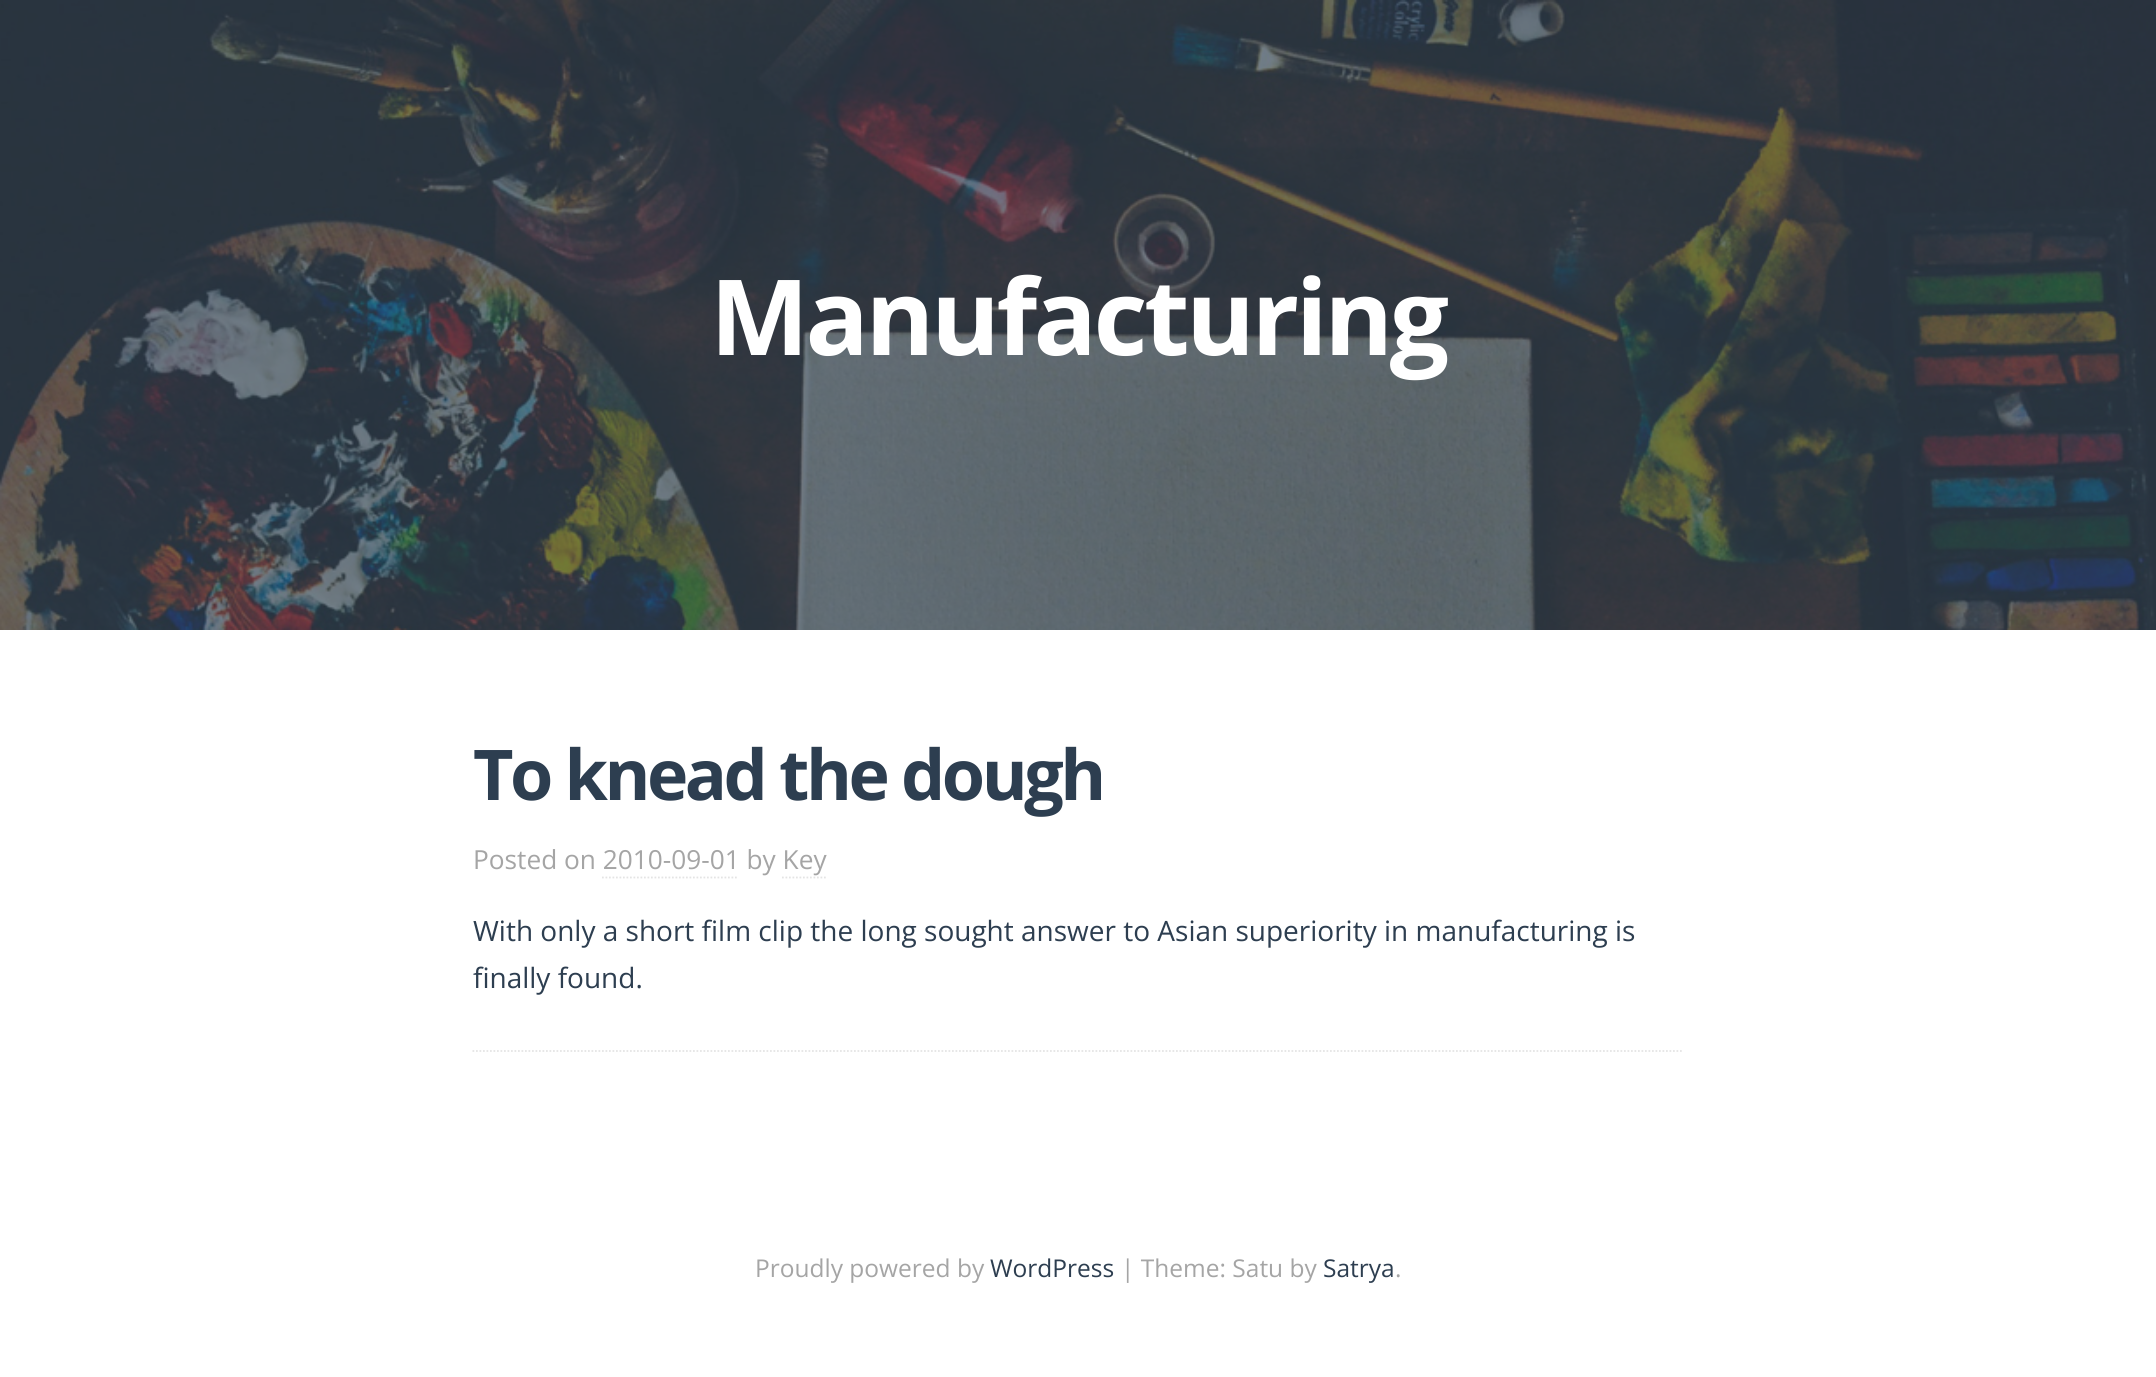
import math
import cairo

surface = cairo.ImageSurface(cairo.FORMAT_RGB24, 2156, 1377)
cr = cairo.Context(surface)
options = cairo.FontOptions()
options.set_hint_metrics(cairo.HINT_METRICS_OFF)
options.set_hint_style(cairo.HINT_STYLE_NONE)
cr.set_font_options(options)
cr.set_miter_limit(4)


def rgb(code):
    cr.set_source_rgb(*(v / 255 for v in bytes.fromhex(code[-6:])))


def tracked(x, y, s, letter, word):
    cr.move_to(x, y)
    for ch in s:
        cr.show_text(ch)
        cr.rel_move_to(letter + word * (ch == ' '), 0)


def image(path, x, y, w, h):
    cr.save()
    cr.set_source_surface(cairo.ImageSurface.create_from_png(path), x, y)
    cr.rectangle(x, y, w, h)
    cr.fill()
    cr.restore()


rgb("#ffffff")
cr.paint()
image("img/1.png", 0, 0, 2156, 630)
cr.new_path()
cr.move_to(472.5, 1051)
cr.line_to(1683.5, 1051)
rgb("#e4e4e4")
cr.set_line_width(1.8)
cr.set_dash([1.75, 1.75])
cr.stroke()
cr.new_path()
cr.move_to(602, 877.5)
cr.line_to(738.5, 877.5)
cr.stroke()
cr.new_path()
cr.move_to(782, 877.5)
cr.line_to(826, 877.5)
cr.stroke()
cr.select_font_face("Open Sans", cairo.FONT_SLANT_NORMAL, cairo.FONT_WEIGHT_BOLD)
cr.set_font_size(105)
rgb("#ffffff")
tracked(710, 355, "Manufacturing", -3.5, 0)
cr.set_font_size(70)
rgb("#2d3e50")
tracked(473, 800, "To knead the dough", -3.5, 0)
cr.select_font_face("Open Sans")
cr.set_font_size(26.25)
rgb("#a5a5a5")
cr.move_to(473, 869)
cr.show_text("Posted on 2010-09-01 by Key")
cr.set_font_size(28)
rgb("#2d3e50")
cr.move_to(473, 941)
cr.show_text("With only a short film clip the long sought answer to Asian superiority in manufacturing is")
cr.move_to(473, 988)
cr.show_text("finally found.")
cr.set_font_size(24.5)
rgb("#a5a5a5")
cr.move_to(755, 1277)
cr.show_text("Proudly powered by")
rgb("#2d3e50")
cr.move_to(990, 1277)
cr.show_text("WordPress")
rgb("#a5a5a5")
cr.move_to(1121, 1277)
cr.show_text("| Theme: Satu by")
rgb("#2d3e50")
cr.move_to(1323, 1277)
cr.show_text("Satrya")
rgb("#a5a5a5")
cr.move_to(1395, 1277)
cr.show_text(".")
surface.write_to_png("page.png")
